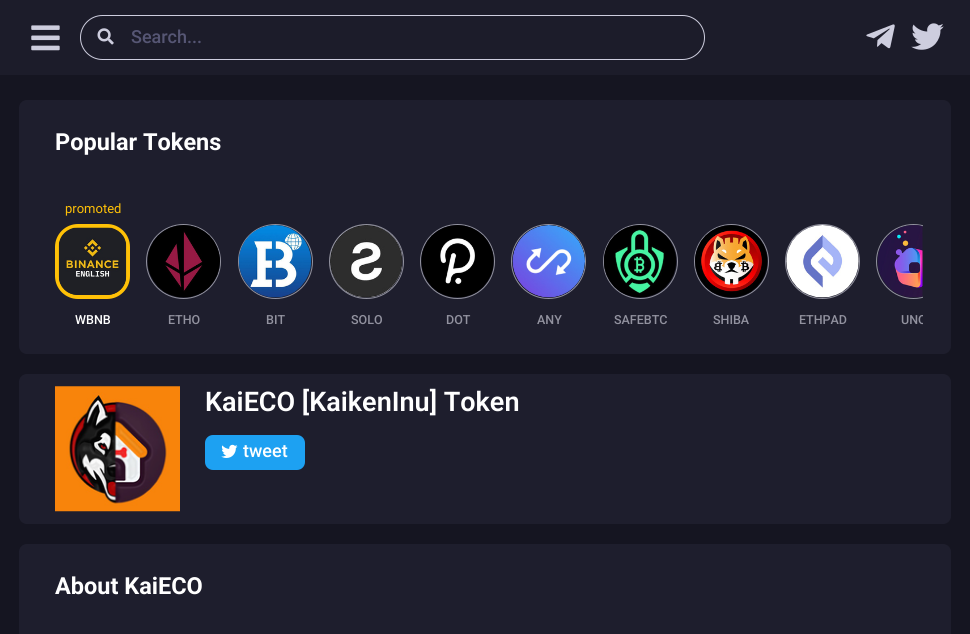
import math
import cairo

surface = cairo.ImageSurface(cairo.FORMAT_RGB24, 970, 634)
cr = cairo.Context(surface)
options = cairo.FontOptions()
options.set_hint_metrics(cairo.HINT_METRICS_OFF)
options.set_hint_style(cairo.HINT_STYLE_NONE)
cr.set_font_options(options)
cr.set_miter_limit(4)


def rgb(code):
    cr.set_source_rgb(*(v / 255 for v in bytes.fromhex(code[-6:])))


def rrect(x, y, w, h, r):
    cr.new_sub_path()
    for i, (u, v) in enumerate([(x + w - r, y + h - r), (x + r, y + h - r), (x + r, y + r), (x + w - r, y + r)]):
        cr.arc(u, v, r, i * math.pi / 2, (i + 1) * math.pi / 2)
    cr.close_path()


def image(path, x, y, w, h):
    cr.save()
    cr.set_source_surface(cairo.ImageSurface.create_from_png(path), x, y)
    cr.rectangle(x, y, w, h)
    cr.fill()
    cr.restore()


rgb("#1c1c2a")
cr.paint()
image("img/1.png", 31, 25, 29, 26)
rrect(80.5, 15.5, 624, 44, 22)
rgb("#cdcdde")
cr.set_line_width(1)
cr.stroke()
image("img/2.png", 97, 28, 17, 17)
image("img/3.png", 866, 24, 29, 25)
image("img/4.png", 911, 23, 33, 27)
rgb("#151521")
cr.rectangle(0, 75, 970, 559)
cr.fill()
rgb("#1e1e2d")
rrect(19, 100, 932, 254, 8)
cr.fill()
rrect(57, 226, 71, 71, 21)
rgb("#ffc107")
cr.set_line_width(4)
cr.stroke()
image("img/5.png", 58, 227, 69, 68)
cr.arc(183.5, 261.5, 37, 0, 2 * math.pi)
rgb("#92929f")
cr.set_line_width(1)
cr.stroke()
image("img/6.png", 147, 225, 73, 73)
cr.arc(275.5, 261.5, 37, 0, 2 * math.pi)
cr.stroke()
image("img/7.png", 238, 225, 74, 73)
cr.arc(366.5, 261.5, 37, 0, 2 * math.pi)
cr.stroke()
image("img/8.png", 330, 225, 73, 73)
cr.arc(457.5, 261.5, 37, 0, 2 * math.pi)
cr.stroke()
image("img/9.png", 421, 225, 73, 73)
cr.arc(548.5, 261.5, 37, 0, 2 * math.pi)
cr.stroke()
image("img/10.png", 512, 225, 73, 73)
cr.arc(640.5, 261.5, 37, 0, 2 * math.pi)
cr.stroke()
image("img/11.png", 603, 225, 73, 73)
cr.arc(731.5, 261.5, 37, 0, 2 * math.pi)
cr.stroke()
image("img/12.png", 695, 225, 73, 73)
cr.arc(822.5, 261.5, 37, 0, 2 * math.pi)
cr.stroke()
image("img/13.png", 786, 225, 73, 73)
cr.save()
cr.rectangle(48, 199, 875, 142)
cr.clip()
cr.arc(913.5, 261.5, 37, 0, 2 * math.pi)
cr.stroke()
cr.restore()
image("img/14.png", 877, 225, 46, 73)
rgb("#1e1e2d")
rrect(19, 374, 932, 150, 8)
cr.fill()
image("img/15.png", 55, 386, 125, 126)
rgb("#1da1f2")
rrect(205, 435, 100, 35, 8)
cr.fill()
image("img/16.png", 221, 444, 17, 14)
rgb("#1e1e2d")
rrect(19, 544, 932, 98, 8)
cr.fill()
cr.select_font_face("Roboto Medium")
cr.set_font_size(18)
rgb("#565674")
cr.move_to(131, 43)
cr.show_text("Search...")
cr.select_font_face("Roboto", cairo.FONT_SLANT_NORMAL, cairo.FONT_WEIGHT_BOLD)
cr.set_font_size(23.5)
rgb("#ffffff")
cr.move_to(55, 150)
cr.show_text("Popular Tokens")
cr.select_font_face("Roboto")
cr.set_font_size(13)
rgb("#ffc107")
cr.move_to(65, 213)
cr.show_text("promoted")
cr.select_font_face("Roboto Medium")
cr.set_font_size(12.5)
rgb("#ffffff")
cr.move_to(75, 324)
cr.show_text("WBNB")
rgb("#92929f")
for x, y, s in [
    (168, 324, "ETHO"),
    (266, 324, "BIT"),
    (351, 324, "SOLO"),
    (446, 324, "DOT"),
    (537, 324, "ANY"),
    (614, 324, "SAFEBTC"),
    (713, 324, "SHIBA"),
    (799, 324, "ETHPAD"),
]:
    cr.move_to(x, y)
    cr.show_text(s)
cr.save()
cr.rectangle(876, 310, 47, 19)
cr.clip()
cr.move_to(901, 324)
cr.show_text("UNO")
cr.restore()
cr.select_font_face("Roboto SemiBold")
cr.set_font_size(27)
rgb("#ffffff")
cr.move_to(205, 411)
cr.show_text("KaiECO [KaikenInu] Token")
cr.select_font_face("Roboto Medium")
cr.set_font_size(18)
cr.move_to(243, 457)
cr.show_text("tweet")
cr.select_font_face("Roboto", cairo.FONT_SLANT_NORMAL, cairo.FONT_WEIGHT_BOLD)
cr.set_font_size(23.5)
cr.move_to(55, 594)
cr.show_text("About KaiECO")
surface.write_to_png("page.png")
